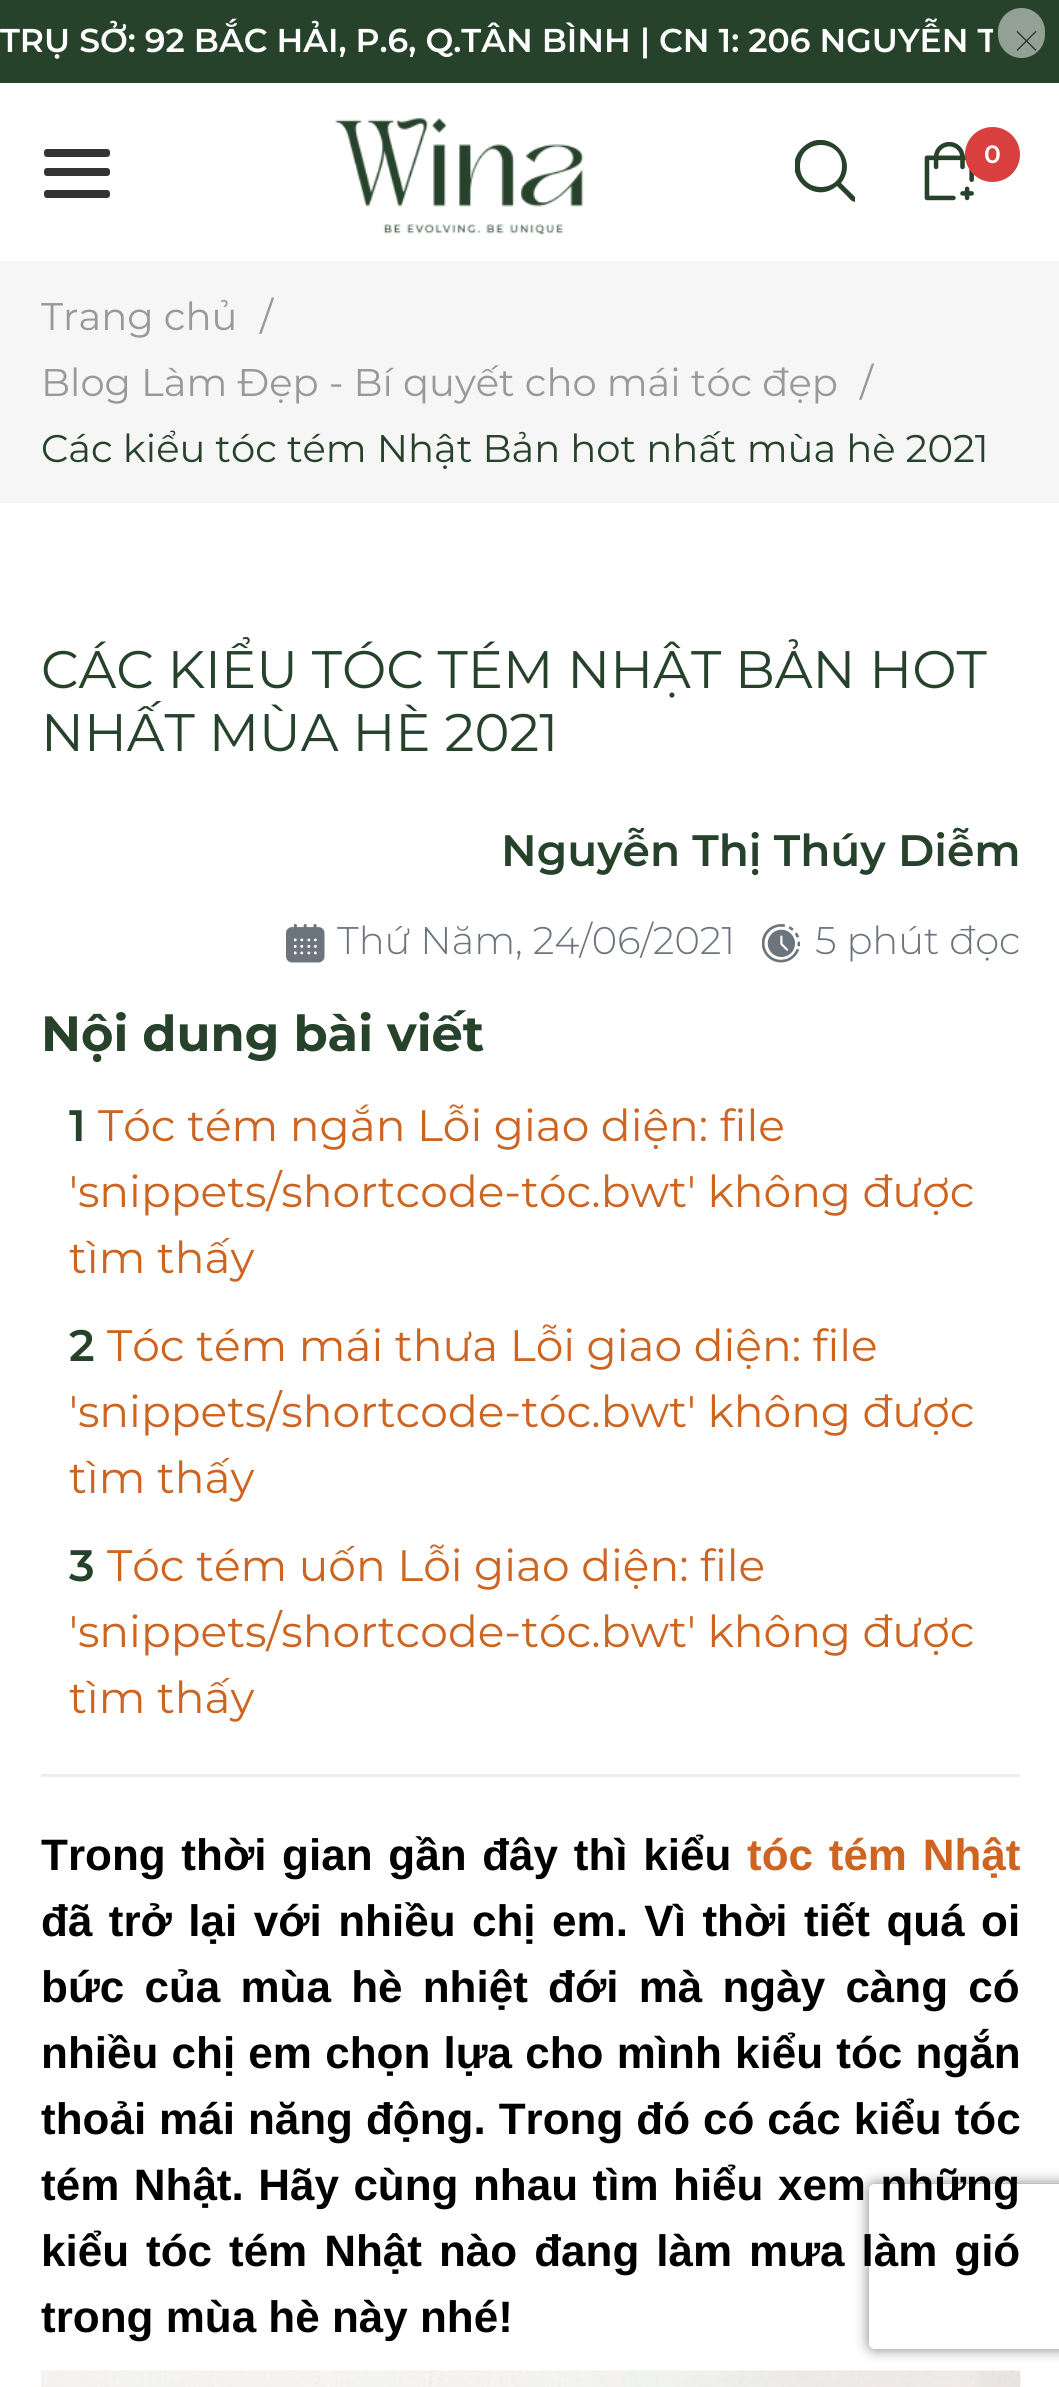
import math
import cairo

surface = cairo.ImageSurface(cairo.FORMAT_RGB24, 1059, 2387)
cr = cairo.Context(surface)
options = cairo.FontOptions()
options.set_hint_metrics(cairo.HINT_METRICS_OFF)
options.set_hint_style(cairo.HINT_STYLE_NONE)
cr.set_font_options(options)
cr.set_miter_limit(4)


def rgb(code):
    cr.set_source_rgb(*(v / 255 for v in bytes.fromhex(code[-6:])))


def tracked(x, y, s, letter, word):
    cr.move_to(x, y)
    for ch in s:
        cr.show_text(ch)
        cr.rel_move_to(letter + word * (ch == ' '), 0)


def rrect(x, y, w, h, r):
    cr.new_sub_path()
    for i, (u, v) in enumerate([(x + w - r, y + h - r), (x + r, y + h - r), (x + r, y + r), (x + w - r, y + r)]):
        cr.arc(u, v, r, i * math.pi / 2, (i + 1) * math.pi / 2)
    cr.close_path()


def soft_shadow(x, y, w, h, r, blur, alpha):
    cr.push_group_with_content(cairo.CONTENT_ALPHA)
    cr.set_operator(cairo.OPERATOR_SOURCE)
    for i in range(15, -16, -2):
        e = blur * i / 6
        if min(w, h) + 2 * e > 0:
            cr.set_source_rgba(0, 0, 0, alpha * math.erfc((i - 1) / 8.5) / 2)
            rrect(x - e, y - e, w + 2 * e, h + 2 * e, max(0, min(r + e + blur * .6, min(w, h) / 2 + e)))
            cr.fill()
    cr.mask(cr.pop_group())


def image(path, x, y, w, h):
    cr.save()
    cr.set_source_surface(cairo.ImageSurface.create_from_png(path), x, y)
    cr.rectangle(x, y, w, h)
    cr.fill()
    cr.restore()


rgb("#ffffff")
cr.paint()
rgb("#27422b")
cr.rectangle(0, 0, 1059, 83)
cr.fill()
rgb("#93a195")
rrect(998, 8, 47, 50, 23.5)
cr.fill()
rgb("#333333")
rrect(44, 149, 66, 8, 3)
cr.fill()
rrect(44, 168, 66, 8, 3)
cr.fill()
rrect(44, 190, 66, 8, 3)
cr.fill()
image("img/1.png", 335, 117, 249, 119)
cr.save()
cr.rectangle(795, 140, 60, 62)
cr.clip()
rgb("#27422b")
cr.new_path()
cr.move_to(856, 198)
cr.line_to(841, 183)
cr.curve_to(861, 158, 826, 124, 802, 148)
cr.curve_to(779, 171, 812, 207, 837, 186)
cr.line_to(847, 196)
cr.curve_to(848, 197, 853, 204, 856, 201)
cr.curve_to(857, 200, 857, 199, 856, 198)
cr.close_path()
cr.move_to(800, 166)
cr.curve_to(800, 138, 842, 138, 842, 166)
cr.curve_to(842, 194, 800, 194, 800, 166)
cr.close_path()
cr.fill()
cr.restore()
image("img/2.png", 924, 141, 50, 60)
rgb("#da3f3f")
cr.arc(992.5, 154.5, 27.5, 0, 2 * math.pi)
cr.fill()
rgb("#f6f6f6")
cr.rectangle(0, 261, 1059, 242)
cr.fill()
image("img/3.png", 286, 924, 39, 39)
image("img/4.png", 762, 924, 38, 39)
rgb("#eeeeee")
cr.rectangle(41, 1774, 979, 3)
cr.fill()
image("img/5.png", 41, 2370, 980, 17)
cr.save()
cr.set_fill_rule(cairo.FILL_RULE_EVEN_ODD)
cr.new_path()
cr.move_to(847, 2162)
cr.line_to(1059, 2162)
cr.line_to(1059, 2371)
cr.line_to(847, 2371)
cr.close_path()
cr.move_to(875, 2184)
cr.line_to(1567, 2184)
cr.curve_to(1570.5, 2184, 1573, 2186.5, 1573, 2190)
cr.line_to(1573, 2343)
cr.curve_to(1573, 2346.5, 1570.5, 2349, 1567, 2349)
cr.line_to(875, 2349)
cr.curve_to(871.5, 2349, 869, 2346.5, 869, 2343)
cr.line_to(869, 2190)
cr.curve_to(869, 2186.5, 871.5, 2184, 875, 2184)
cr.close_path()
cr.clip()
rgb("#808080")
soft_shadow(869, 2184, 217, 165, 6, 7, 1)
cr.restore()
cr.save()
cr.rectangle(0, 0, 993, 83)
cr.clip()
cr.select_font_face("Montserrat SemiBold")
cr.set_font_size(33)
rgb("#ffffff")
cr.move_to(0, 52)
cr.show_text("TRỤ SỞ: 92 BẮC HẢI, P.6, Q.TÂN BÌNH | CN 1: 206 NGUYỄN T")
cr.restore()
cr.select_font_face("Montserrat Thin")
cr.set_font_size(66)
rgb("#263428")
cr.move_to(1008, 64)
cr.show_text("×")
cr.select_font_face("Montserrat SemiBold")
cr.set_font_size(25)
rgb("#ffffff")
cr.move_to(984, 163)
cr.show_text("0")
cr.select_font_face("Montserrat")
cr.set_font_size(38.5)
rgb("#999999")
for x, y, s in [
    (41, 330, "Trang chủ"),
    (260, 330, "/"),
    (41, 396, "Blog Làm Đẹp - Bí quyết cho mái tóc đẹp"),
    (860, 396, "/"),
]:
    cr.move_to(x, y)
    cr.show_text(s)
rgb("#27422b")
cr.move_to(41, 462)
cr.show_text("Các kiểu tóc tém Nhật Bản hot nhất mùa hè 2021")
cr.set_font_size(52.75)
cr.move_to(41, 688)
cr.show_text("CÁC KIỂU TÓC TÉM NHẬT BẢN HOT")
cr.move_to(41, 751)
cr.show_text("NHẤT MÙA HÈ 2021")
cr.select_font_face("Montserrat SemiBold")
cr.set_font_size(44)
cr.move_to(501, 866)
cr.show_text("Nguyễn Thị Thúy Diễm")
cr.select_font_face("Montserrat Light")
cr.set_font_size(38.5)
rgb("#6c757d")
cr.move_to(337, 954)
cr.show_text("Thứ Năm, 24/06/2021")
cr.move_to(815, 954)
cr.show_text("5 phút đọc")
cr.select_font_face("Montserrat", cairo.FONT_SLANT_NORMAL, cairo.FONT_WEIGHT_BOLD)
cr.set_font_size(49.5)
rgb("#27422b")
cr.move_to(41, 1051)
cr.show_text("Nội dung bài viết")
cr.select_font_face("Montserrat SemiBold")
cr.set_font_size(44)
cr.move_to(69, 1141)
cr.show_text("1")
cr.select_font_face("Montserrat")
rgb("#cd6420")
for x, y, s in [
    (98, 1141, "Tóc tém ngắn Lỗi giao diện: file"),
    (69, 1207, "'snippets/shortcode-tóc.bwt' không được"),
    (69, 1273, "tìm thấy"),
]:
    cr.move_to(x, y)
    cr.show_text(s)
cr.select_font_face("Montserrat SemiBold")
rgb("#27422b")
cr.move_to(69, 1361)
cr.show_text("2")
cr.select_font_face("Montserrat")
rgb("#cd6420")
for x, y, s in [
    (107, 1361, "Tóc tém mái thưa Lỗi giao diện: file"),
    (69, 1427, "'snippets/shortcode-tóc.bwt' không được"),
    (69, 1493, "tìm thấy"),
]:
    cr.move_to(x, y)
    cr.show_text(s)
cr.select_font_face("Montserrat SemiBold")
rgb("#27422b")
cr.move_to(69, 1581)
cr.show_text("3")
cr.select_font_face("Montserrat")
rgb("#cd6420")
for x, y, s in [
    (107, 1581, "Tóc tém uốn Lỗi giao diện: file"),
    (69, 1647, "'snippets/shortcode-tóc.bwt' không được"),
    (69, 1713, "tìm thấy"),
]:
    cr.move_to(x, y)
    cr.show_text(s)
cr.select_font_face("Liberation Sans", cairo.FONT_SLANT_NORMAL, cairo.FONT_WEIGHT_BOLD)
rgb("#000000")
tracked(41, 1870, "Trong thời gian gần đây thì kiểu", 0, 3.5)
rgb("#cd6420")
tracked(747, 1870, "tóc tém Nhật", 0, 3.5)
rgb("#000000")
tracked(41, 1936, "đã trở lại với nhiều chị em. Vì thời tiết quá oi", 0, 4.25)
tracked(41, 2002, "bức của mùa hè nhiệt đới mà ngày càng có", 0, 8)
tracked(41, 2068, "nhiều chị em chọn lựa cho mình kiểu tóc ngắn", 0, 1)
tracked(41, 2134, "thoải mái năng động. Trong đó có các kiểu tóc", 0, 0.75)
tracked(41, 2200, "tém Nhật. Hãy cùng nhau tìm hiểu xem những", 0, 2.25)
tracked(41, 2266, "kiểu tóc tém Nhật nào đang làm mưa làm gió", 0, 4.75)
cr.move_to(41, 2332)
cr.show_text("trong mùa hè này nhé!")
surface.write_to_png("page.png")
